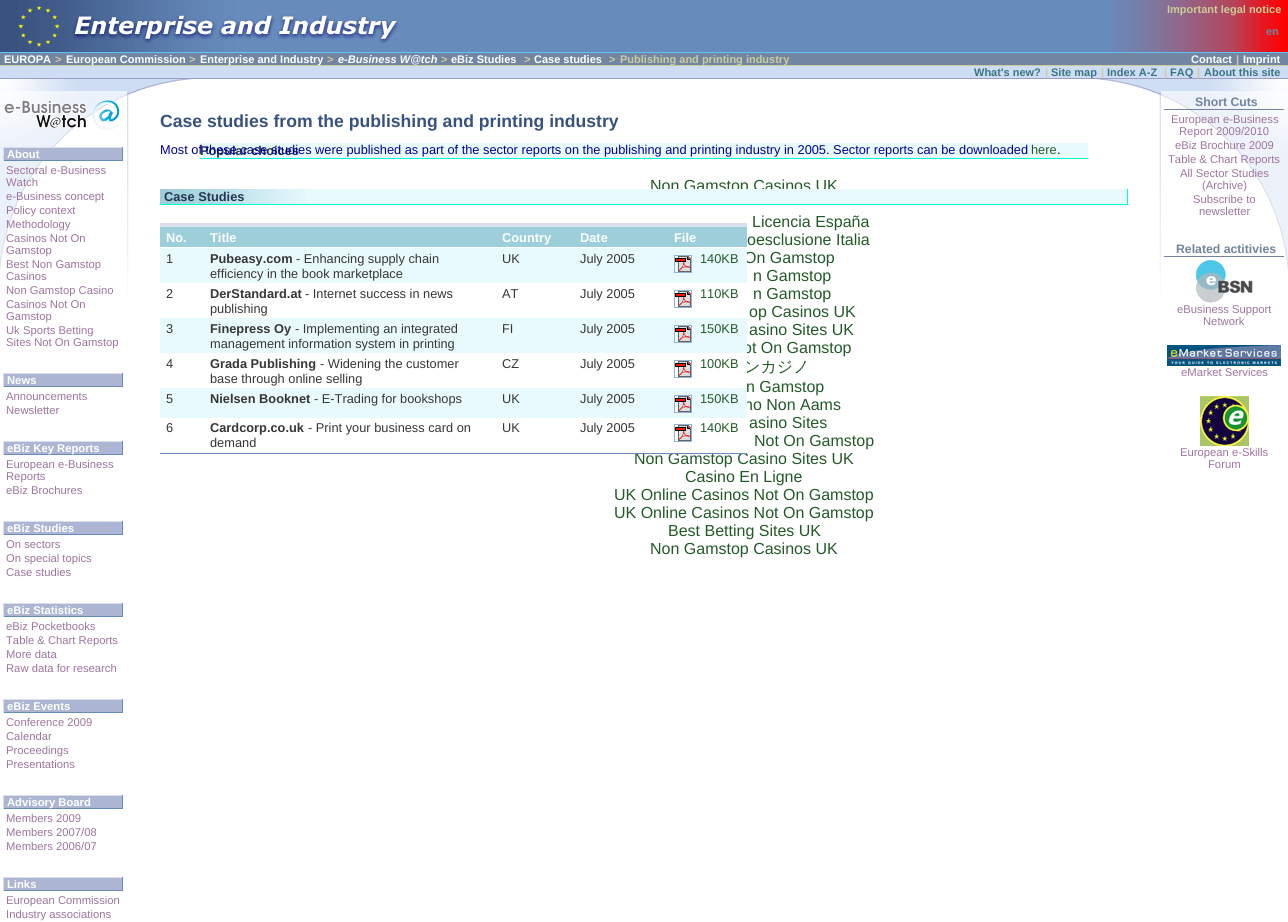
import math
import cairo

surface = cairo.ImageSurface(cairo.FORMAT_RGB24, 1288, 922)
cr = cairo.Context(surface)
options = cairo.FontOptions()
options.set_hint_metrics(cairo.HINT_METRICS_OFF)
options.set_hint_style(cairo.HINT_STYLE_NONE)
cr.set_font_options(options)
cr.set_miter_limit(4)


def rgb(code):
    cr.set_source_rgb(*(v / 255 for v in bytes.fromhex(code[-6:])))


def image(path, x, y, w, h):
    cr.save()
    cr.set_source_surface(cairo.ImageSurface.create_from_png(path), x, y)
    cr.rectangle(x, y, w, h)
    cr.fill()
    cr.restore()


rgb("#ffffff")
cr.paint()
rgb("#678cbc")
cr.rectangle(399, 0, 712, 52)
cr.fill()
image("img/1.png", 0, 0, 399, 52)
image("img/2.png", 1111, 0, 177, 52)
for x, y, w, h, color in [
    (0, 53, 1288, 12, "#7286a4"),
    (0, 52, 1288, 1, "#60c4f6"),
    (0, 65, 1288, 1, "#cccc99"),
    (0, 66, 1288, 12, "#ceddf3"),
    (0, 78, 1288, 1, "#9a9ec8"),
]:
    rgb(color)
    cr.rectangle(x, y, w, h)
    cr.fill()
image("img/10.png", 0, 79, 200, 217)
image("img/3.png", 160, 189, 146, 15)
image("img/6.png", 1088, 79, 200, 217)
for x, y, w, h, color in [
    (1127, 189, 1, 16, "#00ffd8"),
    (160, 204, 968, 1, "#00ffd8"),
    (160, 223, 587, 4, "#dcdfee"),
    (160, 227, 587, 20, "#9ccfd9"),
]:
    rgb(color)
    cr.rectangle(x, y, w, h)
    cr.fill()
cr.rectangle(674.5, 290.5, 17, 17)
rgb("#96b1d8")
cr.set_line_width(1)
cr.stroke()
image("img/5.png", 675, 291, 16, 16)
cr.rectangle(674.5, 360.5, 17, 17)
cr.stroke()
image("img/5.png", 675, 361, 16, 16)
cr.rectangle(674.5, 424.5, 17, 17)
cr.stroke()
image("img/5.png", 675, 425, 16, 16)
rgb("#72849d")
cr.rectangle(1164, 109, 120, 1)
cr.fill()
cr.rectangle(1164, 256, 120, 1)
cr.fill()
image("img/7.png", 1196, 260, 57, 43)
image("img/8.png", 1167, 345, 114, 21)
image("img/9.png", 1200, 396, 49, 50)
image("img/11.png", 4, 99, 117, 31)
for x, y, w, h, color in [
    (4, 148, 118, 12, "#acb6d3"),
    (3, 147, 120, 1, "#dcdfee"),
    (122, 147, 1, 14, "#678cbc"),
    (3, 160, 120, 1, "#678cbc"),
    (3, 147, 1, 14, "#dcdfee"),
    (4, 374, 118, 12, "#acb6d3"),
    (3, 373, 120, 1, "#dcdfee"),
    (122, 373, 1, 14, "#678cbc"),
    (3, 386, 120, 1, "#678cbc"),
    (3, 373, 1, 14, "#dcdfee"),
    (4, 442, 118, 12, "#acb6d3"),
    (3, 441, 120, 1, "#dcdfee"),
    (122, 441, 1, 14, "#678cbc"),
    (3, 454, 120, 1, "#678cbc"),
    (3, 441, 1, 14, "#dcdfee"),
    (4, 522, 118, 12, "#acb6d3"),
    (3, 521, 120, 1, "#dcdfee"),
    (122, 521, 1, 14, "#678cbc"),
    (3, 534, 120, 1, "#678cbc"),
    (3, 521, 1, 14, "#dcdfee"),
    (4, 604, 118, 12, "#acb6d3"),
    (3, 603, 120, 1, "#dcdfee"),
    (122, 603, 1, 14, "#678cbc"),
    (3, 616, 120, 1, "#678cbc"),
    (3, 603, 1, 14, "#dcdfee"),
    (4, 700, 118, 12, "#acb6d3"),
    (3, 699, 120, 1, "#dcdfee"),
    (122, 699, 1, 14, "#678cbc"),
    (3, 712, 120, 1, "#678cbc"),
    (3, 699, 1, 14, "#dcdfee"),
    (4, 796, 118, 12, "#acb6d3"),
    (3, 795, 120, 1, "#dcdfee"),
    (122, 795, 1, 14, "#678cbc"),
    (3, 808, 120, 1, "#678cbc"),
    (3, 795, 1, 14, "#dcdfee"),
    (4, 878, 118, 12, "#acb6d3"),
    (3, 877, 120, 1, "#dcdfee"),
    (122, 877, 1, 14, "#678cbc"),
    (3, 890, 120, 1, "#678cbc"),
    (3, 877, 1, 14, "#dcdfee"),
    (200, 143, 888, 15, "#e9fafe"),
    (200, 158, 888, 1, "#00ffd8"),
]:
    rgb(color)
    cr.rectangle(x, y, w, h)
    cr.fill()
cr.select_font_face("Liberation Sans", cairo.FONT_SLANT_NORMAL, cairo.FONT_WEIGHT_BOLD)
cr.set_font_size(11)
rgb("#cccc99")
cr.move_to(1167, 13)
cr.show_text("Important legal notice")
rgb("#7286a4")
cr.move_to(1266, 35)
cr.show_text("en")
rgb("#ffffff")
cr.move_to(4, 63)
cr.show_text("EUROPA")
rgb("#cccc99")
cr.move_to(55, 63)
cr.show_text(">")
rgb("#ffffff")
cr.move_to(66, 63)
cr.show_text("European Commission")
rgb("#cccc99")
cr.move_to(189, 63)
cr.show_text(">")
rgb("#ffffff")
cr.move_to(200, 63)
cr.show_text("Enterprise and Industry")
rgb("#cccc99")
cr.move_to(327, 63)
cr.show_text(">")
cr.select_font_face("Liberation Sans", cairo.FONT_SLANT_ITALIC, cairo.FONT_WEIGHT_BOLD)
rgb("#ffffff")
cr.move_to(338, 63)
cr.show_text("e-Business W@tch")
cr.select_font_face("Liberation Sans", cairo.FONT_SLANT_NORMAL, cairo.FONT_WEIGHT_BOLD)
rgb("#cccc99")
cr.move_to(441, 63)
cr.show_text(">")
rgb("#ffffff")
cr.move_to(451, 63)
cr.show_text("eBiz Studies")
rgb("#cccc99")
cr.move_to(524, 63)
cr.show_text(">")
rgb("#ffffff")
cr.move_to(534, 63)
cr.show_text("Case studies")
rgb("#cccc99")
cr.move_to(609, 63)
cr.show_text(">")
cr.move_to(620, 63)
cr.show_text("Publishing and printing industry")
rgb("#ffffff")
cr.move_to(1191, 63)
cr.show_text("Contact")
rgb("#cccc99")
cr.move_to(1236, 63)
cr.show_text("|")
rgb("#ffffff")
cr.move_to(1243, 63)
cr.show_text("Imprint")
rgb("#397683")
cr.move_to(974, 76)
cr.show_text("What's new?")
rgb("#cccc99")
cr.move_to(1045, 76)
cr.show_text("|")
rgb("#397683")
cr.move_to(1051, 76)
cr.show_text("Site map")
rgb("#cccc99")
cr.move_to(1101, 76)
cr.show_text("|")
rgb("#397683")
cr.move_to(1107, 76)
cr.show_text("Index A-Z")
rgb("#cccc99")
cr.move_to(1164, 76)
cr.show_text("|")
rgb("#397683")
cr.move_to(1170, 76)
cr.show_text("FAQ")
rgb("#cccc99")
cr.move_to(1197, 76)
cr.show_text("|")
rgb("#397683")
cr.move_to(1204, 76)
cr.show_text("About this site")
cr.set_font_size(17.6)
rgb("#38517f")
cr.move_to(160, 127)
cr.show_text("Case studies from the publishing and printing industry")
cr.select_font_face("Liberation Sans")
cr.set_font_size(12.8)
rgb("#235928")
cr.move_to(1031, 154)
cr.show_text("here")
rgb("#000099")
cr.move_to(1057, 154)
cr.show_text(".")
cr.select_font_face("Liberation Sans", cairo.FONT_SLANT_NORMAL, cairo.FONT_WEIGHT_BOLD)
rgb("#243554")
cr.move_to(164, 201)
cr.show_text("Case Studies")
rgb("#ffffff")
for x, y, s in [
    (166, 242, "No."),
    (210, 242, "Title"),
    (502, 242, "Country"),
    (580, 242, "Date"),
    (674, 242, "File"),
]:
    cr.move_to(x, y)
    cr.show_text(s)
cr.select_font_face("Liberation Sans")
rgb("#373535")
cr.move_to(166, 298)
cr.show_text("2")
cr.select_font_face("Liberation Sans", cairo.FONT_SLANT_NORMAL, cairo.FONT_WEIGHT_BOLD)
cr.move_to(210, 298)
cr.show_text("DerStandard.at")
cr.select_font_face("Liberation Sans")
for x, y, s in [
    (305, 298, "- Internet success in news"),
    (210, 313, "publishing"),
    (502, 298, "AT"),
    (580, 298, "July 2005"),
]:
    cr.move_to(x, y)
    cr.show_text(s)
rgb("#235928")
cr.move_to(700, 298)
cr.show_text("110KB")
rgb("#373535")
cr.move_to(166, 368)
cr.show_text("4")
cr.select_font_face("Liberation Sans", cairo.FONT_SLANT_NORMAL, cairo.FONT_WEIGHT_BOLD)
cr.move_to(210, 368)
cr.show_text("Grada Publishing")
cr.select_font_face("Liberation Sans")
for x, y, s in [
    (320, 368, "- Widening the customer"),
    (210, 383, "base through online selling"),
    (502, 368, "CZ"),
    (580, 368, "July 2005"),
]:
    cr.move_to(x, y)
    cr.show_text(s)
rgb("#235928")
cr.move_to(700, 368)
cr.show_text("100KB")
rgb("#373535")
cr.move_to(166, 432)
cr.show_text("6")
cr.select_font_face("Liberation Sans", cairo.FONT_SLANT_NORMAL, cairo.FONT_WEIGHT_BOLD)
cr.move_to(210, 432)
cr.show_text("Cardcorp.co.uk")
cr.select_font_face("Liberation Sans")
for x, y, s in [
    (308, 432, "- Print your business card on"),
    (210, 447, "demand"),
    (502, 432, "UK"),
    (580, 432, "July 2005"),
]:
    cr.move_to(x, y)
    cr.show_text(s)
rgb("#235928")
cr.move_to(700, 432)
cr.show_text("140KB")
cr.select_font_face("Liberation Sans", cairo.FONT_SLANT_NORMAL, cairo.FONT_WEIGHT_BOLD)
cr.set_font_size(12.25)
rgb("#72849d")
cr.move_to(1195, 106)
cr.show_text("Short Cuts")
cr.select_font_face("Liberation Sans")
cr.set_font_size(11.25)
rgb("#9d749e")
for x, y, s in [
    (1171, 123, "European e-Business"),
    (1179, 135, "Report 2009/2010"),
    (1175, 149, "eBiz Brochure 2009"),
    (1168, 163, "Table & Chart Reports"),
    (1180, 177, "All Sector Studies"),
    (1202, 189, "(Archive)"),
    (1193, 203, "Subscribe to"),
    (1199, 215, "newsletter"),
]:
    cr.move_to(x, y)
    cr.show_text(s)
cr.select_font_face("Liberation Sans", cairo.FONT_SLANT_NORMAL, cairo.FONT_WEIGHT_BOLD)
cr.set_font_size(12.25)
rgb("#72849d")
cr.move_to(1176, 253)
cr.show_text("Related actitivies")
cr.select_font_face("Liberation Sans")
cr.set_font_size(11.25)
rgb("#9d749e")
for x, y, s in [
    (1177, 313, "eBusiness Support"),
    (1203, 325, "Network"),
    (1181, 376, "eMarket Services"),
    (1180, 456, "European e-Skills"),
    (1208, 468, "Forum"),
]:
    cr.move_to(x, y)
    cr.show_text(s)
cr.select_font_face("Liberation Sans", cairo.FONT_SLANT_NORMAL, cairo.FONT_WEIGHT_BOLD)
rgb("#ffffff")
cr.move_to(7, 158)
cr.show_text("About")
cr.select_font_face("Liberation Sans")
rgb("#9d749e")
for x, y, s in [
    (6, 174, "Sectoral e-Business"),
    (6, 186, "Watch"),
    (6, 200, "e-Business concept"),
    (6, 214, "Policy context"),
    (6, 228, "Methodology"),
    (6, 242, "Casinos Not On"),
    (6, 254, "Gamstop"),
    (6, 268, "Best Non Gamstop"),
    (6, 280, "Casinos"),
    (6, 294, "Non Gamstop Casino"),
    (6, 308, "Casinos Not On"),
    (6, 320, "Gamstop"),
    (6, 334, "Uk Sports Betting"),
    (6, 346, "Sites Not On Gamstop"),
]:
    cr.move_to(x, y)
    cr.show_text(s)
cr.select_font_face("Liberation Sans", cairo.FONT_SLANT_NORMAL, cairo.FONT_WEIGHT_BOLD)
rgb("#ffffff")
cr.move_to(7, 384)
cr.show_text("News")
cr.select_font_face("Liberation Sans")
rgb("#9d749e")
cr.move_to(6, 400)
cr.show_text("Announcements")
cr.move_to(6, 414)
cr.show_text("Newsletter")
cr.select_font_face("Liberation Sans", cairo.FONT_SLANT_NORMAL, cairo.FONT_WEIGHT_BOLD)
rgb("#ffffff")
cr.move_to(7, 452)
cr.show_text("eBiz Key Reports")
cr.select_font_face("Liberation Sans")
rgb("#9d749e")
for x, y, s in [
    (6, 468, "European e-Business"),
    (6, 480, "Reports"),
    (6, 494, "eBiz Brochures"),
]:
    cr.move_to(x, y)
    cr.show_text(s)
cr.select_font_face("Liberation Sans", cairo.FONT_SLANT_NORMAL, cairo.FONT_WEIGHT_BOLD)
rgb("#ffffff")
cr.move_to(7, 532)
cr.show_text("eBiz Studies")
cr.select_font_face("Liberation Sans")
rgb("#9d749e")
for x, y, s in [
    (6, 548, "On sectors"),
    (6, 562, "On special topics"),
    (6, 576, "Case studies"),
]:
    cr.move_to(x, y)
    cr.show_text(s)
cr.select_font_face("Liberation Sans", cairo.FONT_SLANT_NORMAL, cairo.FONT_WEIGHT_BOLD)
rgb("#ffffff")
cr.move_to(7, 614)
cr.show_text("eBiz Statistics")
cr.select_font_face("Liberation Sans")
rgb("#9d749e")
for x, y, s in [
    (6, 630, "eBiz Pocketbooks"),
    (6, 644, "Table & Chart Reports"),
    (6, 658, "More data"),
    (6, 672, "Raw data for research"),
]:
    cr.move_to(x, y)
    cr.show_text(s)
cr.select_font_face("Liberation Sans", cairo.FONT_SLANT_NORMAL, cairo.FONT_WEIGHT_BOLD)
rgb("#ffffff")
cr.move_to(7, 710)
cr.show_text("eBiz Events")
cr.select_font_face("Liberation Sans")
rgb("#9d749e")
for x, y, s in [
    (6, 726, "Conference 2009"),
    (6, 740, "Calendar"),
    (6, 754, "Proceedings"),
    (6, 768, "Presentations"),
]:
    cr.move_to(x, y)
    cr.show_text(s)
cr.select_font_face("Liberation Sans", cairo.FONT_SLANT_NORMAL, cairo.FONT_WEIGHT_BOLD)
rgb("#ffffff")
cr.move_to(7, 806)
cr.show_text("Advisory Board")
cr.select_font_face("Liberation Sans")
rgb("#9d749e")
for x, y, s in [
    (6, 822, "Members 2009"),
    (6, 836, "Members 2007/08"),
    (6, 850, "Members 2006/07"),
]:
    cr.move_to(x, y)
    cr.show_text(s)
cr.select_font_face("Liberation Sans", cairo.FONT_SLANT_NORMAL, cairo.FONT_WEIGHT_BOLD)
rgb("#ffffff")
cr.move_to(7, 888)
cr.show_text("Links")
cr.select_font_face("Liberation Sans")
rgb("#9d749e")
cr.move_to(6, 904)
cr.show_text("European Commission")
cr.move_to(6, 918)
cr.show_text("Industry associations")
cr.select_font_face("Liberation Sans", cairo.FONT_SLANT_NORMAL, cairo.FONT_WEIGHT_BOLD)
cr.set_font_size(12.8)
rgb("#243554")
cr.move_to(200, 155)
cr.show_text("Popular choices")
cr.select_font_face("Liberation Sans")
rgb("#000099")
cr.move_to(160, 154)
cr.show_text("Most of these case studies were published as part of the sector reports on the publishing and printing industry in 2005. Sector reports can be downloaded")
cr.set_font_size(16)
rgb("#235928")
cr.move_to(650, 191)
cr.show_text("Non Gamstop Casinos UK")
rgb("#e9fafe")
cr.rectangle(306, 189, 821, 15)
cr.fill()
rgb("#235928")
for x, y, s in [
    (752, 227, "Licencia España"),
    (747, 245, "oesclusione Italia"),
    (744, 263, "On Gamstop"),
]:
    cr.move_to(x, y)
    cr.show_text(s)
rgb("#e9fafe")
cr.rectangle(160, 248, 587, 35)
cr.fill()
cr.set_font_size(12.8)
rgb("#235928")
cr.move_to(700, 263)
cr.show_text("140KB")
rgb("#373535")
for x, y, s in [
    (580, 263, "July 2005"),
    (502, 263, "UK"),
    (210, 278, "efficiency in the book marketplace"),
    (296, 263, "- Enhancing supply chain"),
]:
    cr.move_to(x, y)
    cr.show_text(s)
cr.select_font_face("Liberation Sans", cairo.FONT_SLANT_NORMAL, cairo.FONT_WEIGHT_BOLD)
cr.move_to(210, 263)
cr.show_text("Pubeasy.com")
cr.select_font_face("Liberation Sans")
cr.move_to(166, 263)
cr.show_text("1")
cr.rectangle(674.5, 255.5, 17, 17)
rgb("#96b1d8")
cr.stroke()
image("img/4.png", 675, 256, 16, 16)
cr.set_font_size(16)
rgb("#235928")
for x, y, s in [
    (753, 281, "n Gamstop"),
    (753, 299, "n Gamstop"),
    (749, 317, "op Casinos UK"),
    (749, 335, "asino Sites UK"),
    (743, 353, "ot On Gamstop"),
]:
    cr.move_to(x, y)
    cr.show_text(s)
rgb("#e9fafe")
cr.rectangle(160, 318, 587, 35)
cr.fill()
cr.set_font_size(12.8)
rgb("#235928")
cr.move_to(700, 333)
cr.show_text("150KB")
rgb("#373535")
for x, y, s in [
    (580, 333, "July 2005"),
    (502, 333, "FI"),
    (210, 348, "management information system in printing"),
    (295, 333, "- Implementing an integrated"),
]:
    cr.move_to(x, y)
    cr.show_text(s)
cr.select_font_face("Liberation Sans", cairo.FONT_SLANT_NORMAL, cairo.FONT_WEIGHT_BOLD)
cr.move_to(210, 333)
cr.show_text("Finepress Oy")
cr.select_font_face("Liberation Sans")
cr.move_to(166, 333)
cr.show_text("3")
cr.rectangle(674.5, 325.5, 17, 17)
rgb("#96b1d8")
cr.stroke()
image("img/4.png", 675, 326, 16, 16)
cr.select_font_face("WenQuanYi Zen Hei Medium")
cr.set_font_size(16)
rgb("#235928")
cr.move_to(744, 372)
cr.show_text("ンカジノ")
cr.select_font_face("Liberation Sans")
cr.move_to(746, 392)
cr.show_text("n Gamstop")
rgb("#ffffff")
cr.rectangle(746, 353, 1, 35)
cr.fill()
rgb("#235928")
cr.move_to(744, 410)
cr.show_text("no Non Aams")
rgb("#e9fafe")
cr.rectangle(160, 388, 587, 30)
cr.fill()
cr.set_font_size(12.8)
rgb("#235928")
cr.move_to(700, 403)
cr.show_text("150KB")
rgb("#373535")
for x, y, s in [
    (580, 403, "July 2005"),
    (502, 403, "UK"),
    (314, 403, "- E-Trading for bookshops"),
]:
    cr.move_to(x, y)
    cr.show_text(s)
cr.select_font_face("Liberation Sans", cairo.FONT_SLANT_NORMAL, cairo.FONT_WEIGHT_BOLD)
cr.move_to(210, 403)
cr.show_text("Nielsen Booknet")
cr.select_font_face("Liberation Sans")
cr.move_to(166, 403)
cr.show_text("5")
cr.rectangle(674.5, 395.5, 17, 17)
rgb("#96b1d8")
cr.stroke()
image("img/4.png", 675, 396, 16, 16)
cr.set_font_size(16)
rgb("#235928")
for x, y, s in [
    (749, 428, "asino Sites"),
    (754, 446, "Not On Gamstop"),
    (634, 464, "Non Gamstop Casino Sites UK"),
]:
    cr.move_to(x, y)
    cr.show_text(s)
rgb("#ffffff")
cr.rectangle(673, 452, 72, 1)
cr.fill()
rgb("#678cbc")
cr.rectangle(160, 453, 587, 1)
cr.fill()
rgb("#235928")
for x, y, s in [
    (685, 482, "Casino En Ligne"),
    (614, 500, "UK Online Casinos Not On Gamstop"),
    (614, 518, "UK Online Casinos Not On Gamstop"),
    (668, 536, "Best Betting Sites UK"),
    (650, 554, "Non Gamstop Casinos UK"),
]:
    cr.move_to(x, y)
    cr.show_text(s)
surface.write_to_png("page.png")
